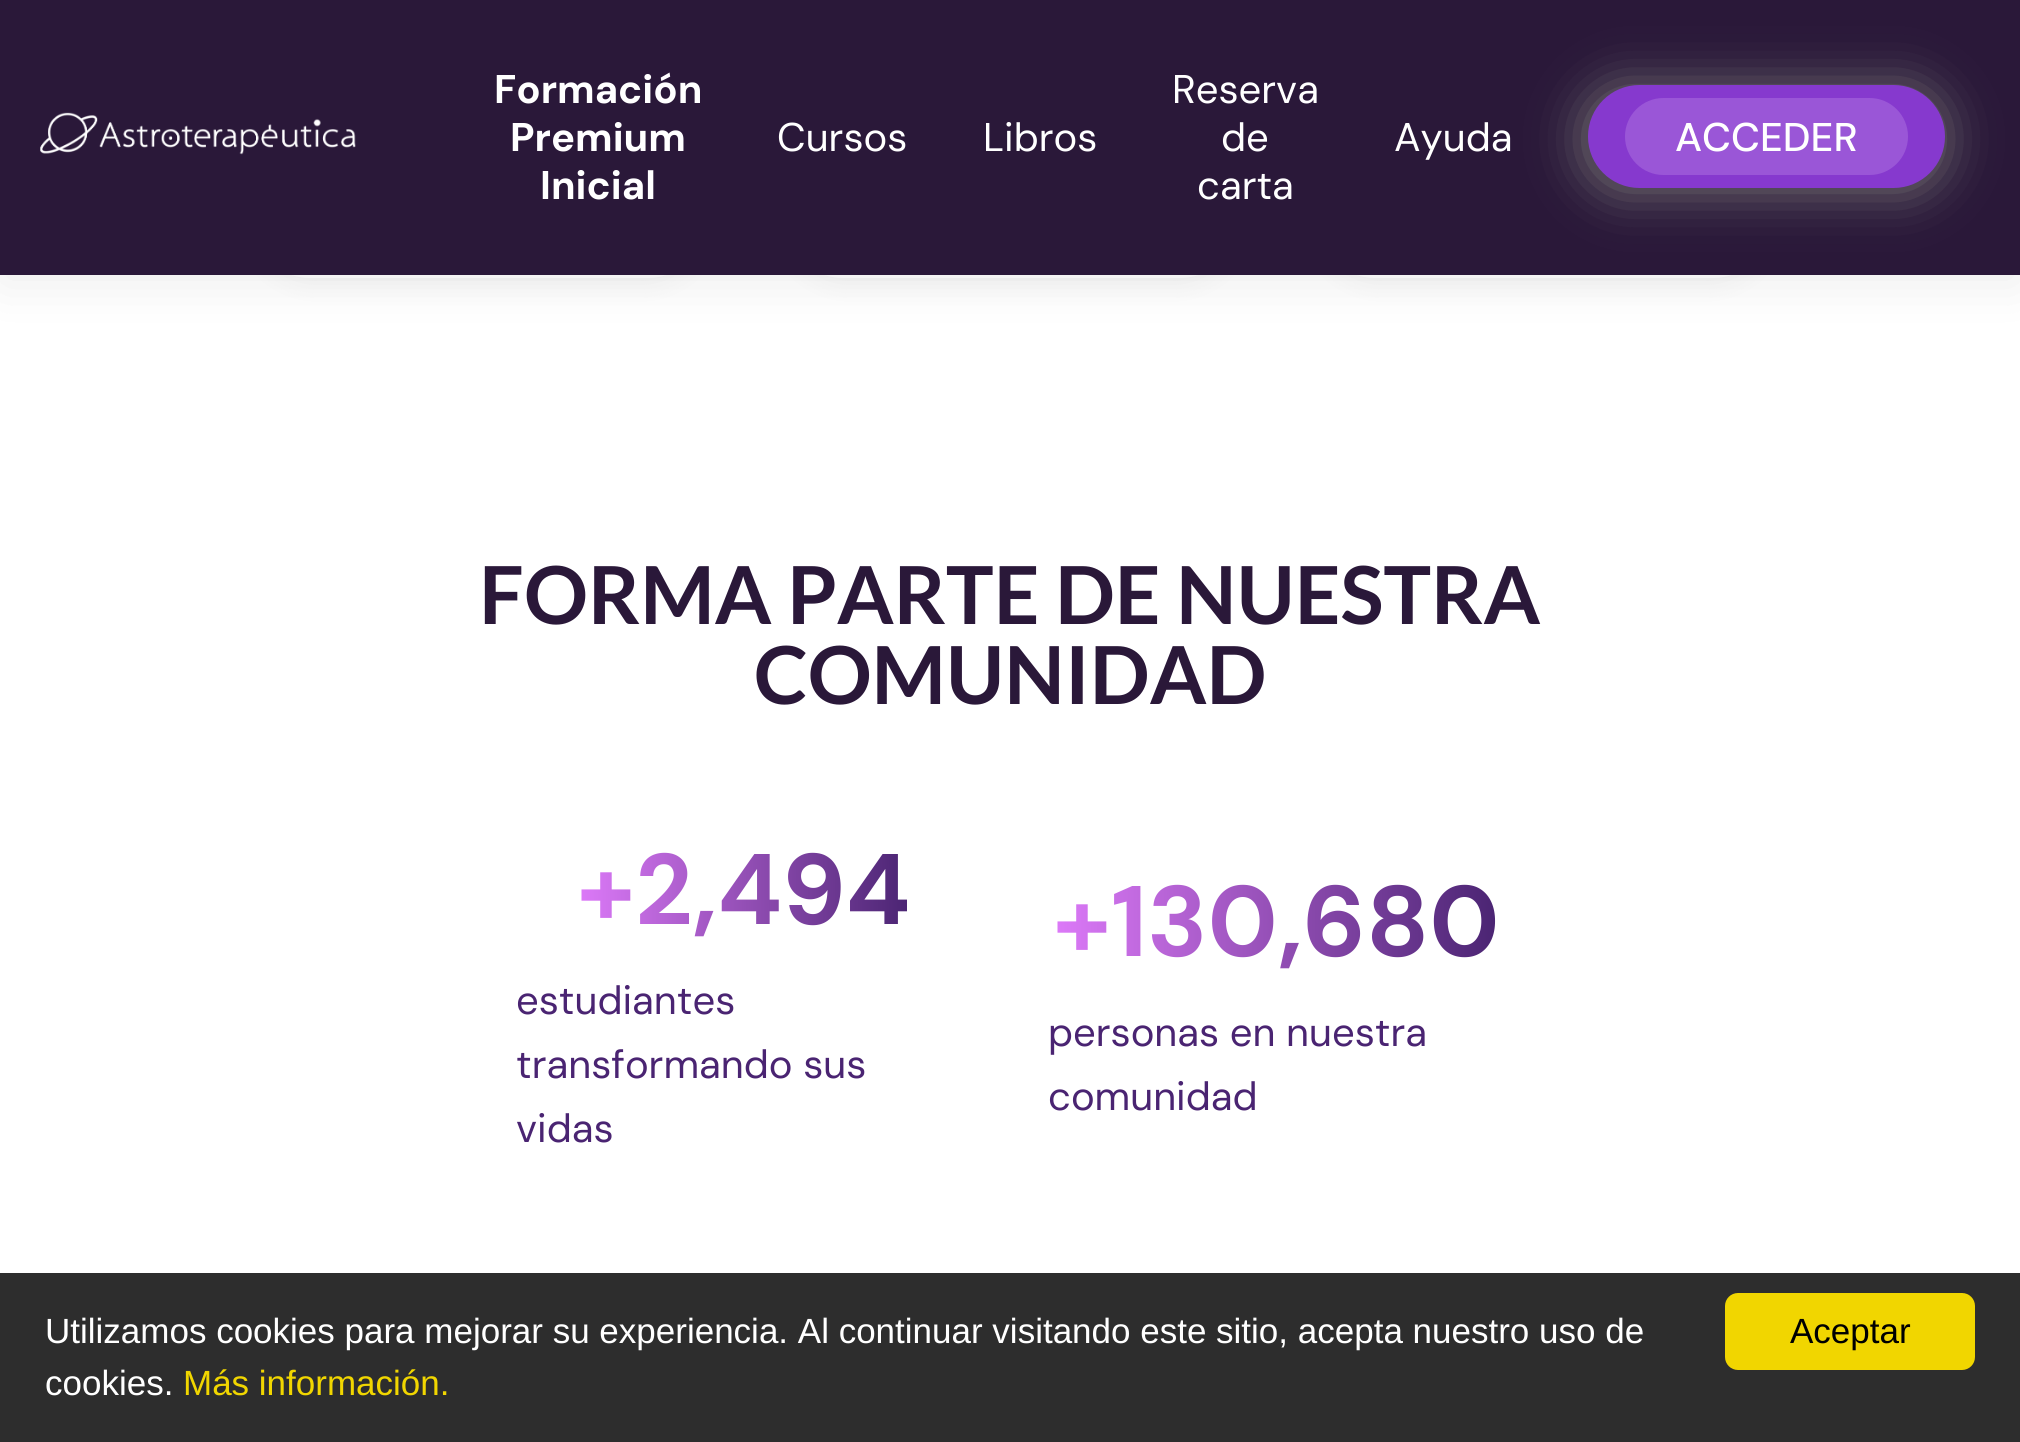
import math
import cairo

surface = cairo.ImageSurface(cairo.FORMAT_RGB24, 2020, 1442)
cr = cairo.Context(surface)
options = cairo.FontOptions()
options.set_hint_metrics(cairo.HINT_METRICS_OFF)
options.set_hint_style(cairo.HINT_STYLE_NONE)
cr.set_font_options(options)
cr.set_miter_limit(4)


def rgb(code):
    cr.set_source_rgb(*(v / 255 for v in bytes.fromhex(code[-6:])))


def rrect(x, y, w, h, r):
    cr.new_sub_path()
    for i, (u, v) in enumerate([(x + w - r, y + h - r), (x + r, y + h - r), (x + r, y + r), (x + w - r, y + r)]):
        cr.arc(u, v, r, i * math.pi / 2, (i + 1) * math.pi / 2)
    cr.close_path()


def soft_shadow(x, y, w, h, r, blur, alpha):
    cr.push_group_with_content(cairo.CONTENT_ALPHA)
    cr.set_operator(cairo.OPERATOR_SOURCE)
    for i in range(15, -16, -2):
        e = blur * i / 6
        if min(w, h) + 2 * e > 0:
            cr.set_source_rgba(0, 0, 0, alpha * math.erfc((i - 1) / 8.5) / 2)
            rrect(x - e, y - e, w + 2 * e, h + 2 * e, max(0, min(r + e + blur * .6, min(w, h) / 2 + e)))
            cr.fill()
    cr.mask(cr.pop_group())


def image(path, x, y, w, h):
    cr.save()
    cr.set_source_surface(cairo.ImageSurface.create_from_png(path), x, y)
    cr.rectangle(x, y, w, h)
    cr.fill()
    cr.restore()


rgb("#ffffff")
cr.paint()
rgb("#000000")
soft_shadow(250, -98, 458, 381, 60, 12.5, 0.05)
rgb("#ffffff")
rrect(250, -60, 458, 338, 60)
cr.fill()
rgb("#000000")
soft_shadow(783, -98, 457, 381, 60, 12.5, 0.05)
rgb("#ffffff")
rrect(783, -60, 457, 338, 60)
cr.fill()
rgb("#000000")
soft_shadow(1315, -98, 458, 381, 60, 12.5, 0.05)
rgb("#ffffff")
rrect(1315, -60, 458, 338, 60)
cr.fill()
rgb("#000000")
soft_shadow(0, 10, 2020, 275, 0, 25, 0.07)
rgb("#2a1839")
cr.rectangle(0, 0, 2020, 275)
cr.fill()
image("img/1.png", 40, 112, 316, 43)
rgb("#777676")
soft_shadow(1585, 88, 358, 102, 51, 25, 1)
rgb("#8639ce")
rrect(1590.5, 87.5, 352, 98, 49)
cr.fill_preserve()
cr.set_line_width(5)
cr.stroke()
rgb("#9a56d7")
rrect(1625, 98, 283, 77, 38.5)
cr.fill()
rgb("#2d2d2d")
cr.rectangle(0, 1273, 2020, 169)
cr.fill()
rgb("#f1d600")
rrect(1725, 1293, 250, 77, 13)
cr.fill()
cr.select_font_face("DM Sans", cairo.FONT_SLANT_NORMAL, cairo.FONT_WEIGHT_BOLD)
cr.set_font_size(40)
rgb("#ffffff")
for x, y, s in [
    (494, 103, "Formación"),
    (510, 151, "Premium"),
    (540, 199, "Inicial"),
]:
    cr.move_to(x, y)
    cr.show_text(s)
cr.select_font_face("DM Sans")
for x, y, s in [
    (777, 151, "Cursos"),
    (983, 151, "Libros"),
    (1172, 103, "Reserva"),
    (1221, 151, "de"),
    (1197, 199, "carta"),
    (1394, 151, "Ayuda"),
]:
    cr.move_to(x, y)
    cr.show_text(s)
cr.select_font_face("DM Sans Medium")
cr.move_to(1675, 151)
cr.show_text("ACCEDER")
cr.select_font_face("Lato", cairo.FONT_SLANT_NORMAL, cairo.FONT_WEIGHT_BOLD)
cr.set_font_size(80)
rgb("#2a1839")
cr.move_to(479, 624)
cr.show_text("FORMA PARTE DE NUESTRA")
cr.move_to(754, 704)
cr.show_text("COMUNIDAD")
cr.select_font_face("DM Sans", cairo.FONT_SLANT_NORMAL, cairo.FONT_WEIGHT_BOLD)
cr.set_font_size(100)
gradient = cairo.LinearGradient(577, 889, 911, 889)
gradient.add_color_stop_rgba(0, 0.867, 0.478, 0.976, 1)
gradient.add_color_stop_rgba(1, 0.29, 0.141, 0.447, 1)
cr.set_source(gradient)
cr.move_to(577, 924)
cr.show_text("+2,494")
cr.select_font_face("DM Sans")
cr.set_font_size(40)
rgb("#4a2472")
for x, y, s in [
    (516, 1014, "estudiantes"),
    (516, 1078, "transformando sus"),
    (516, 1142, "vidas"),
]:
    cr.move_to(x, y)
    cr.show_text(s)
cr.select_font_face("DM Sans", cairo.FONT_SLANT_NORMAL, cairo.FONT_WEIGHT_BOLD)
cr.set_font_size(100)
gradient = cairo.LinearGradient(1053, 921, 1499, 921)
gradient.add_color_stop_rgba(0, 0.867, 0.478, 0.976, 1)
gradient.add_color_stop_rgba(1, 0.29, 0.141, 0.447, 1)
cr.set_source(gradient)
cr.move_to(1053, 956)
cr.show_text("+130,680")
cr.select_font_face("DM Sans")
cr.set_font_size(40)
rgb("#4a2472")
cr.move_to(1048, 1046)
cr.show_text("personas en nuestra")
cr.move_to(1048, 1110)
cr.show_text("comunidad")
cr.select_font_face("Liberation Sans")
cr.set_font_size(35)
rgb("#ffffff")
cr.move_to(45, 1343)
cr.show_text("Utilizamos cookies para mejorar su experiencia. Al continuar visitando este sitio, acepta nuestro uso de")
cr.move_to(45, 1395)
cr.show_text("cookies.")
rgb("#f1d600")
cr.move_to(183, 1395)
cr.show_text("Más información.")
rgb("#000000")
cr.move_to(1790, 1343)
cr.show_text("Aceptar")
surface.write_to_png("page.png")
